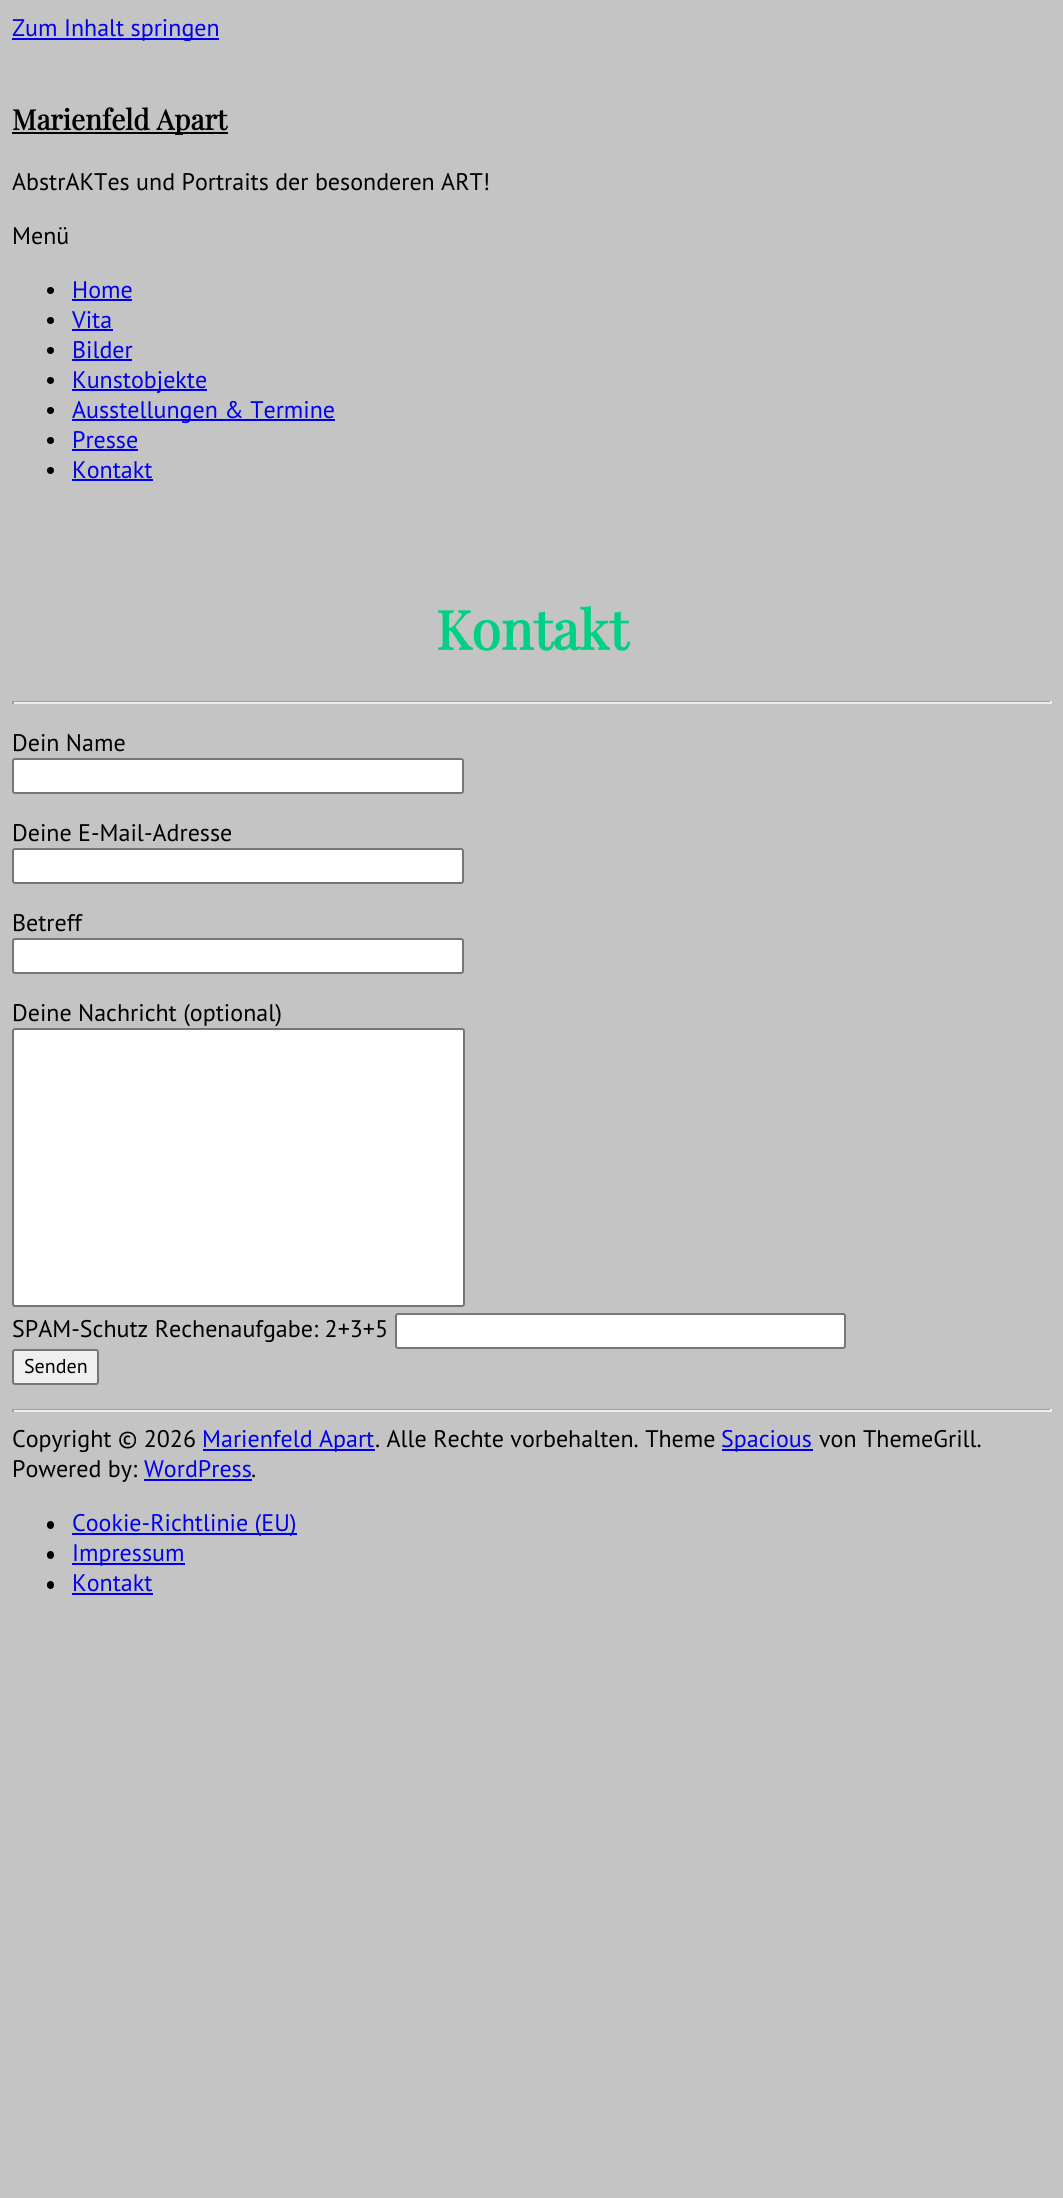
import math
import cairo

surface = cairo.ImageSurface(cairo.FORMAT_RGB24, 1063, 2198)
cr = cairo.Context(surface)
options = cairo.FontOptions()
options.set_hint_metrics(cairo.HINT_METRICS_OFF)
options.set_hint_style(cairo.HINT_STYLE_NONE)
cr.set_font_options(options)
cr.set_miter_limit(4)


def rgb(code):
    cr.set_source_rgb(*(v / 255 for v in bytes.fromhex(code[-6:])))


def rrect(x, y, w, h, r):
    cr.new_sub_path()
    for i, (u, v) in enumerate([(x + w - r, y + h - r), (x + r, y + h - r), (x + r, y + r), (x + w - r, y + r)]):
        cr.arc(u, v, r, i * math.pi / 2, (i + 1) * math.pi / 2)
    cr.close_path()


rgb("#c4c4c4")
cr.paint()
rgb("#0000ee")
cr.rectangle(12, 38, 207, 2)
cr.fill()
rgb("#000000")
cr.rectangle(12, 132, 216, 2)
cr.fill()
cr.arc(50.5, 290.5, 3.5, 0, 2 * math.pi)
cr.fill()
rgb("#0000ee")
cr.rectangle(72, 299, 60, 2)
cr.fill()
rgb("#000000")
cr.arc(50.5, 320.5, 3.5, 0, 2 * math.pi)
cr.fill()
rgb("#0000ee")
cr.rectangle(72, 329, 41, 2)
cr.fill()
rgb("#000000")
cr.arc(50.5, 350.5, 3.5, 0, 2 * math.pi)
cr.fill()
rgb("#0000ee")
cr.rectangle(72, 359, 60, 2)
cr.fill()
rgb("#000000")
cr.arc(50.5, 380.5, 3.5, 0, 2 * math.pi)
cr.fill()
rgb("#0000ee")
cr.rectangle(72, 389, 135, 2)
cr.fill()
rgb("#000000")
cr.arc(50.5, 410.5, 3.5, 0, 2 * math.pi)
cr.fill()
rgb("#0000ee")
cr.rectangle(72, 419, 263, 2)
cr.fill()
rgb("#000000")
cr.arc(50.5, 440.5, 3.5, 0, 2 * math.pi)
cr.fill()
rgb("#0000ee")
cr.rectangle(72, 449, 66, 2)
cr.fill()
rgb("#000000")
cr.arc(50.5, 470.5, 3.5, 0, 2 * math.pi)
cr.fill()
for x, y, w, h, color in [
    (72, 479, 81, 2, "#0000ee"),
    (12, 701, 1040, 1, "#9f9f9f"),
    (1050, 701, 2, 3, "#eeeeee"),
    (12, 702, 1040, 2, "#eeeeee"),
    (12, 701, 2, 3, "#9f9f9f"),
]:
    rgb(color)
    cr.rectangle(x, y, w, h)
    cr.fill()
rgb("#ffffff")
rrect(13, 759, 450, 34, 2)
cr.fill_preserve()
rgb("#767676")
cr.stroke()
rgb("#ffffff")
rrect(13, 849, 450, 34, 2)
cr.fill_preserve()
rgb("#767676")
cr.stroke()
rgb("#ffffff")
rrect(13, 939, 450, 34, 2)
cr.fill_preserve()
rgb("#767676")
cr.stroke()
rgb("#ffffff")
rrect(13, 1029, 451, 277, 2)
cr.fill_preserve()
rgb("#767676")
cr.stroke()
rgb("#ffffff")
rrect(396, 1314, 449, 34, 2)
cr.fill_preserve()
rgb("#767676")
cr.stroke()
rgb("#efefef")
rrect(13, 1350, 85, 34, 2)
cr.fill_preserve()
rgb("#767676")
cr.stroke()
for x, y, w, h, color in [
    (12, 1409, 1040, 1, "#9f9f9f"),
    (1050, 1409, 2, 3, "#eeeeee"),
    (12, 1410, 1040, 2, "#eeeeee"),
    (12, 1409, 2, 3, "#9f9f9f"),
    (203, 1449, 172, 2, "#0000ee"),
    (722, 1449, 91, 2, "#0000ee"),
    (144, 1479, 108, 2, "#0000ee"),
]:
    rgb(color)
    cr.rectangle(x, y, w, h)
    cr.fill()
rgb("#000000")
rrect(47, 1521, 7, 8, 3.5)
cr.fill()
rgb("#0000ee")
cr.rectangle(72, 1533, 225, 2)
cr.fill()
rgb("#000000")
rrect(47, 1551, 7, 8, 3.5)
cr.fill()
rgb("#0000ee")
cr.rectangle(72, 1563, 113, 2)
cr.fill()
rgb("#000000")
rrect(47, 1581, 7, 8, 3.5)
cr.fill()
rgb("#0000ee")
cr.rectangle(72, 1593, 81, 2)
cr.fill()
cr.select_font_face("PT Sans")
cr.set_font_size(24)
cr.move_to(12, 36)
cr.show_text("Zum Inhalt springen")
cr.select_font_face("Playfair Display", cairo.FONT_SLANT_NORMAL, cairo.FONT_WEIGHT_BOLD)
cr.set_font_size(28)
rgb("#000000")
cr.move_to(12, 130)
cr.show_text("Marienfeld Apart")
cr.select_font_face("PT Sans")
cr.set_font_size(24)
cr.move_to(12, 190)
cr.show_text("AbstrAKTes und Portraits der besonderen ART!")
cr.move_to(12, 244)
cr.show_text("Menü")
rgb("#0000ee")
for x, y, s in [
    (72, 298, "Home"),
    (72, 328, "Vita"),
    (72, 358, "Bilder"),
    (72, 388, "Kunstobjekte"),
    (72, 418, "Ausstellungen & Termine"),
    (72, 448, "Presse"),
    (72, 478, "Kontakt"),
]:
    cr.move_to(x, y)
    cr.show_text(s)
cr.select_font_face("Playfair Display", cairo.FONT_SLANT_NORMAL, cairo.FONT_WEIGHT_BOLD)
cr.set_font_size(54)
rgb("#00d084")
cr.move_to(436, 650)
cr.show_text("Kontakt")
cr.select_font_face("PT Sans")
cr.set_font_size(24)
rgb("#000000")
for x, y, s in [
    (12, 751, "Dein Name"),
    (12, 841, "Deine E-Mail-Adresse"),
    (12, 931, "Betreff"),
    (12, 1021, "Deine Nachricht (optional)"),
    (12, 1337, "SPAM-Schutz Rechenaufgabe: 2+3+5"),
]:
    cr.move_to(x, y)
    cr.show_text(s)
cr.set_font_size(20)
cr.move_to(24, 1373)
cr.show_text("Senden")
cr.set_font_size(24)
cr.move_to(12, 1447)
cr.show_text("Copyright © 2026")
rgb("#0000ee")
cr.move_to(202, 1447)
cr.show_text("Marienfeld Apart")
rgb("#000000")
cr.move_to(375, 1447)
cr.show_text(". Alle Rechte vorbehalten. Theme")
rgb("#0000ee")
cr.move_to(721, 1447)
cr.show_text("Spacious")
rgb("#000000")
cr.move_to(819, 1447)
cr.show_text("von ThemeGrill.")
cr.move_to(12, 1477)
cr.show_text("Powered by:")
rgb("#0000ee")
cr.move_to(144, 1477)
cr.show_text("WordPress")
rgb("#000000")
cr.move_to(251, 1477)
cr.show_text(".")
rgb("#0000ee")
for x, y, s in [
    (72, 1531, "Cookie-Richtlinie (EU)"),
    (72, 1561, "Impressum"),
    (72, 1591, "Kontakt"),
]:
    cr.move_to(x, y)
    cr.show_text(s)
surface.write_to_png("page.png")
